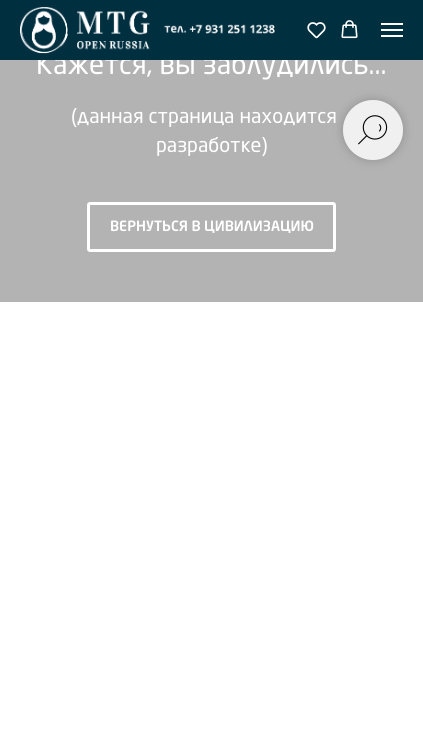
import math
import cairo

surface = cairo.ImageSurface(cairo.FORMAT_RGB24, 423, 752)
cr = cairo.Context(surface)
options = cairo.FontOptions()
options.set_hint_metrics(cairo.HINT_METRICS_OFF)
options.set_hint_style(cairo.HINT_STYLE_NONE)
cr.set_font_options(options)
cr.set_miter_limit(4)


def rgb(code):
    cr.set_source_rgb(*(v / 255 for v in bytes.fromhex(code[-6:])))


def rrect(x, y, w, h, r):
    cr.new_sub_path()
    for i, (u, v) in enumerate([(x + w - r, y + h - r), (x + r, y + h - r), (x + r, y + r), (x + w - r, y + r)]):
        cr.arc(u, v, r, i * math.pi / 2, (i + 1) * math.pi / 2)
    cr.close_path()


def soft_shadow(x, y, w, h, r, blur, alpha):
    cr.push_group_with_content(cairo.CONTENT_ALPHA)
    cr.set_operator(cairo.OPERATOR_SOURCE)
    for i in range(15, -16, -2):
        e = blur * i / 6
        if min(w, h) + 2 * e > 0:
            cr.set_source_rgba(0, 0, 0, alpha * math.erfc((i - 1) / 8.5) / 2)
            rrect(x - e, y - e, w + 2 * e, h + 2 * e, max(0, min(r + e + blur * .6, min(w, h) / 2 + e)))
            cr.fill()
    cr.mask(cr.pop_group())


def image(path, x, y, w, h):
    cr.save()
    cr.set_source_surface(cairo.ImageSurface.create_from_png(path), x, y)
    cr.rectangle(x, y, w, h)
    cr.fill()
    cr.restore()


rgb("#ffffff")
cr.paint()
rgb("#b3b3b3")
cr.rectangle(0, 60, 423, 242)
cr.fill()
cr.save()
cr.set_fill_rule(cairo.FILL_RULE_EVEN_ODD)
cr.new_path()
cr.move_to(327, 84)
cr.line_to(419, 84)
cr.line_to(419, 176)
cr.line_to(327, 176)
cr.close_path()
cr.move_to(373, 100)
cr.curve_to(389.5, 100, 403, 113.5, 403, 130)
cr.curve_to(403, 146.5, 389.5, 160, 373, 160)
cr.curve_to(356.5, 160, 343, 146.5, 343, 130)
cr.curve_to(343, 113.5, 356.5, 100, 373, 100)
cr.close_path()
cr.clip()
rgb("#000000")
soft_shadow(343, 100, 60, 60, 30, 5, 0.2)
cr.restore()
cr.set_source_rgba(1, 1, 1, 0.8)
cr.arc(373, 130, 30, 0, 2 * math.pi)
cr.fill()
image("img/4.png", 358, 115, 30, 30)
rrect(88.5, 203.5, 246, 47, 1.5)
rgb("#ffffff")
cr.set_line_width(3)
cr.stroke()
cr.select_font_face("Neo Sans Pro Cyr")
cr.set_font_size(28)
cr.move_to(36, 74)
cr.show_text("Кажется, вы заблудились...")
for x, y, w, h, color in [
    (0, 0, 423, 60, "#002f40"),
    (381, 35, 22, 2, "#ffffff"),
    (381, 29, 22, 2, "#ffffff"),
    (381, 23, 22, 2, "#ffffff"),
]:
    rgb(color)
    cr.rectangle(x, y, w, h)
    cr.fill()
image("img/1.png", 20, 7, 255, 47)
image("img/3.png", 341, 20, 17, 19)
image("img/2.png", 307, 22, 19, 17)
cr.set_font_size(20)
cr.move_to(71, 123)
cr.show_text("(данная страница находится")
cr.move_to(156, 152)
cr.show_text("разработке)")
cr.select_font_face("Neo Sans Pro Cyr Medium")
cr.set_font_size(14)
cr.move_to(110, 231)
cr.show_text("ВЕРНУТЬСЯ В ЦИВИЛИЗАЦИЮ")
surface.write_to_png("page.png")
